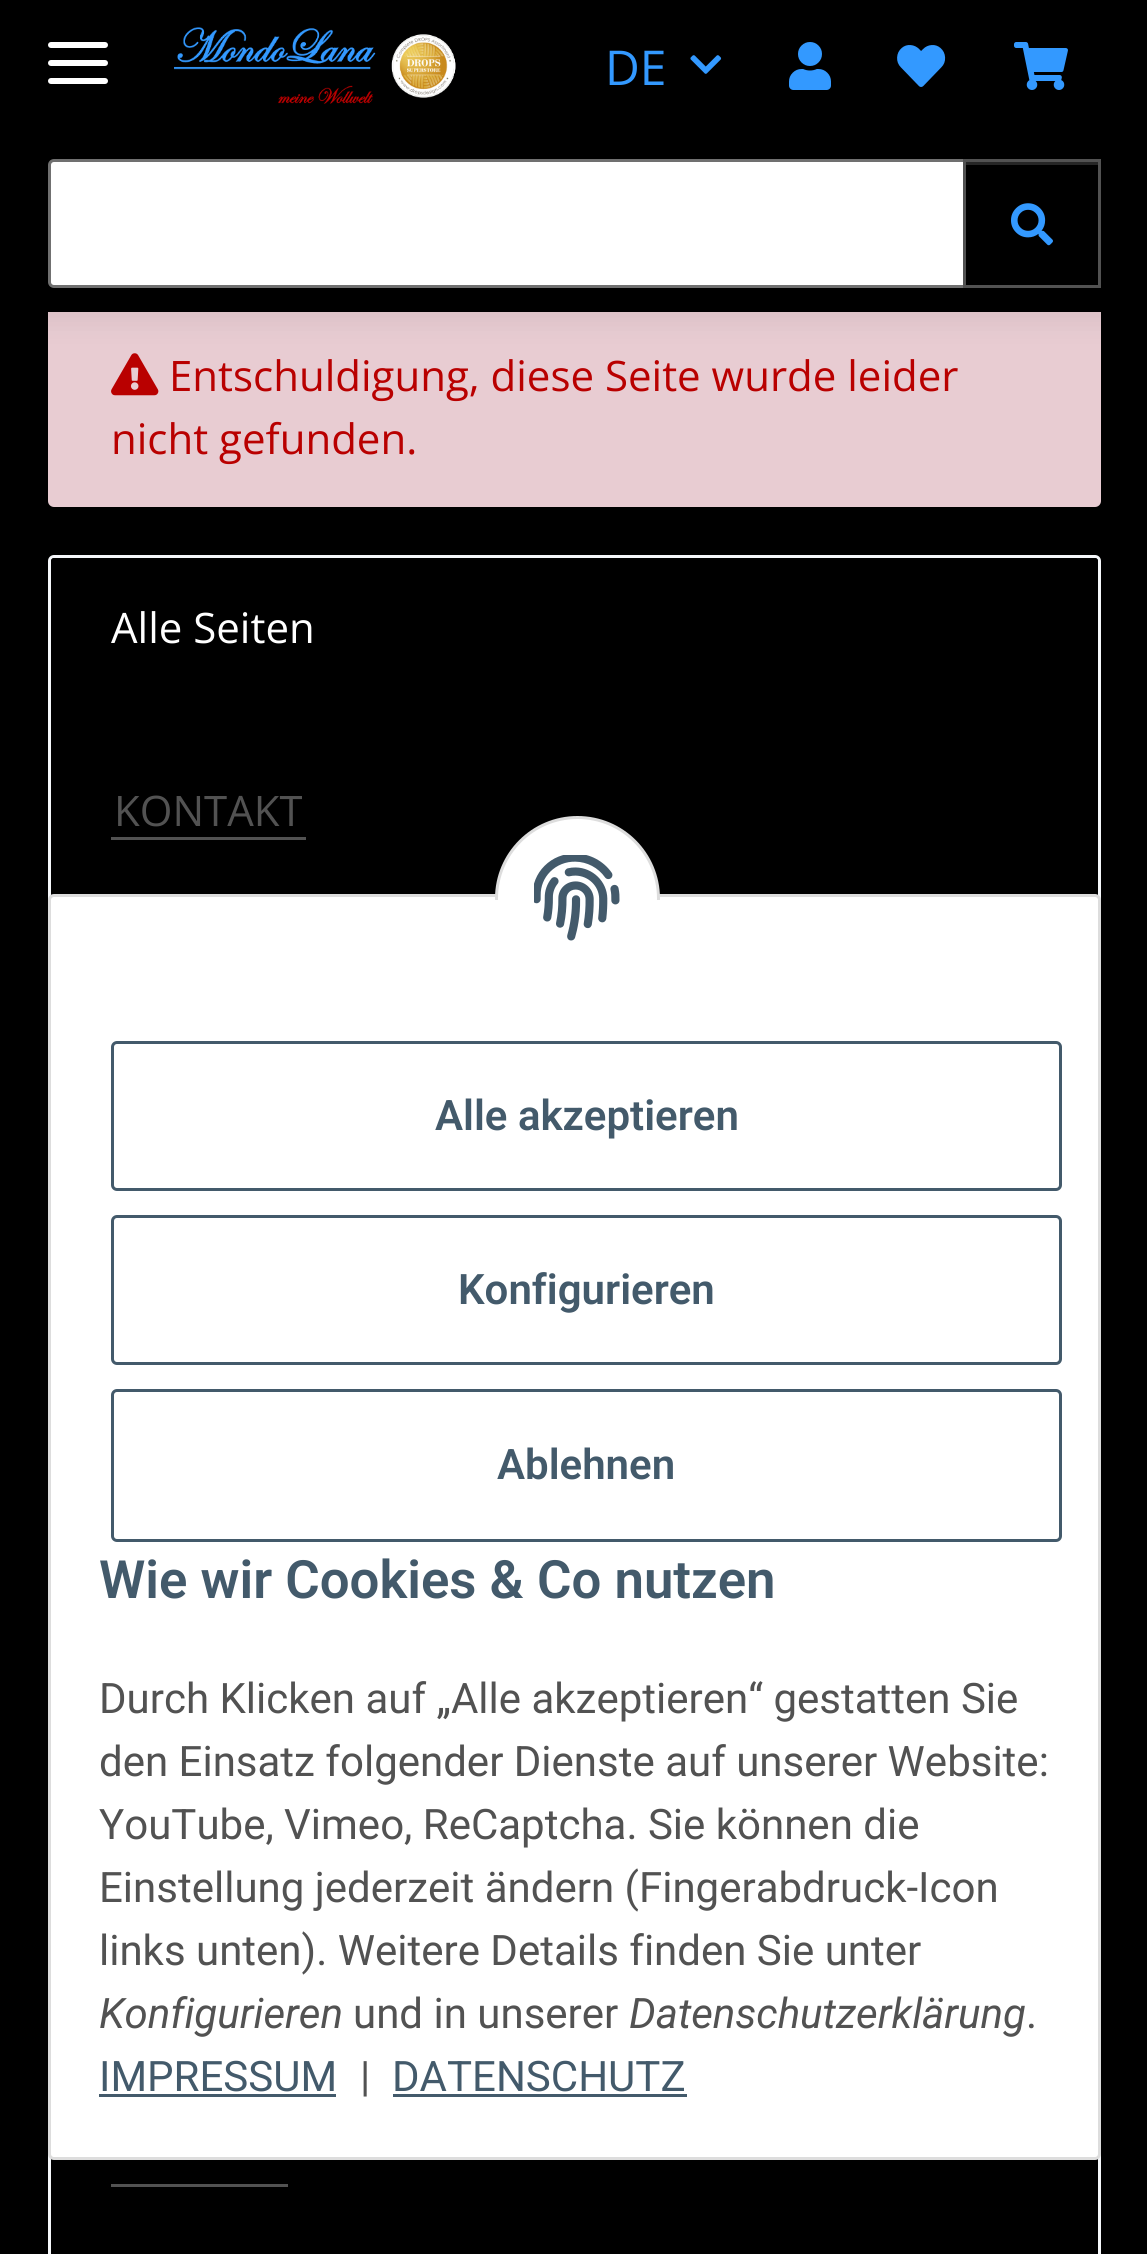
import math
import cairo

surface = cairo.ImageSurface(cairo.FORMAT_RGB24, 1147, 2254)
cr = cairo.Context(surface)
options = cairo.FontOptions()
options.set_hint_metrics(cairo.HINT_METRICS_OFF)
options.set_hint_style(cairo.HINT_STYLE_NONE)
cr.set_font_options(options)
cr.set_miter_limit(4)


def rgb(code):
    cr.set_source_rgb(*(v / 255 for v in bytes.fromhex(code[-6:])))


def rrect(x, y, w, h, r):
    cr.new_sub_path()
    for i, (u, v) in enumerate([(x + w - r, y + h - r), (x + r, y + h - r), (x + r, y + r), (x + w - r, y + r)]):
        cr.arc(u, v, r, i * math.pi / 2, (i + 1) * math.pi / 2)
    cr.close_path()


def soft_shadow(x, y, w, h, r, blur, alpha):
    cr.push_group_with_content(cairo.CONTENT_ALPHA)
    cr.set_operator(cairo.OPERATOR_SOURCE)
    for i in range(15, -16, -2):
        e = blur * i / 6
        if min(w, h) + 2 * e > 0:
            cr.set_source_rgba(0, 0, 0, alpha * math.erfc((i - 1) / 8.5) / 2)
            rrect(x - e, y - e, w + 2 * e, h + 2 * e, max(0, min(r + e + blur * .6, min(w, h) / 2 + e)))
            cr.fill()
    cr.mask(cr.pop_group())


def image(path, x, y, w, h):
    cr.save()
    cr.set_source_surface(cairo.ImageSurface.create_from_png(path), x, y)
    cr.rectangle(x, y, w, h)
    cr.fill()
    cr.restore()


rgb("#000000")
cr.paint()
rgb("#e8ccd2")
rrect(49.5, 304.5, 1050, 201, 4.5)
cr.fill_preserve()
cr.set_line_width(3)
cr.stroke()
image("img/7.png", 111, 353, 48, 43)
rgb("#000000")
soft_shadow(36, 84, 1077, 240, 0, 13.5, 0.06)
rgb("#000000")
cr.rectangle(48, 303, 1053, 9)
cr.fill()
rgb("#ffffff")
rrect(48, 60, 60, 6, 3)
cr.fill()
rrect(48, 42, 60, 6, 3)
cr.fill()
rrect(48, 78, 60, 6, 3)
cr.fill()
image("img/1.png", 174, 27, 282, 77)
image("img/2.png", 690, 55, 32, 19)
image("img/3.png", 789, 42, 42, 48)
image("img/4.png", 897, 45, 49, 42)
image("img/5.png", 1014, 42, 54, 48)
cr.new_path()
cr.move_to(54, 160.5)
cr.line_to(964.5, 160.5)
cr.line_to(964.5, 286.5)
cr.line_to(54, 286.5)
cr.curve_to(51.5, 286.5, 49.5, 284.5, 49.5, 282)
cr.line_to(49.5, 165)
cr.curve_to(49.5, 162.5, 51.5, 160.5, 54, 160.5)
cr.close_path()
cr.fill_preserve()
rgb("#707070")
cr.stroke()
rgb("#262626")
cr.rectangle(966, 162, 132, 3)
cr.fill()
cr.rectangle(964.5, 160.5, 135, 126)
rgb("#525252")
cr.stroke()
image("img/6.png", 1011, 203, 42, 43)
rrect(49.5, 556.5, 1050, 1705, 4.5)
rgb("#f5f7fa")
cr.stroke()
rgb("#000000")
cr.new_path()
cr.move_to(54, 558)
cr.line_to(1095, 558)
cr.curve_to(1096.5, 558, 1098, 559.5, 1098, 561)
cr.line_to(1098, 693)
cr.line_to(51, 693)
cr.line_to(51, 561)
cr.curve_to(51, 559.5, 52.5, 558, 54, 558)
cr.close_path()
cr.fill()
rgb("#525252")
cr.rectangle(111, 837, 195, 3)
cr.fill()
cr.rectangle(111, 2184, 177, 3)
cr.fill()
rgb("#ffffff")
rrect(49.5, 895.5, 1050, 1263, 4.5)
cr.fill_preserve()
rgb("#dddddd")
cr.stroke()
rgb("#ffffff")
cr.arc(577.5, 898.5, 81, 0, 2 * math.pi)
cr.fill_preserve()
rgb("#dddddd")
cr.stroke()
rgb("#ffffff")
cr.rectangle(495, 900, 165, 81)
cr.fill()
image("img/8.png", 534, 855, 86, 86)
rrect(112.5, 1042.5, 948, 147, 4.5)
rgb("#435a6b")
cr.stroke()
rrect(112.5, 1216.5, 948, 147, 4.5)
cr.stroke()
rrect(112.5, 1390.5, 948, 150, 4.5)
cr.stroke()
cr.rectangle(99, 2094, 237, 3)
cr.fill()
cr.rectangle(393, 2094, 294, 3)
cr.fill()
cr.select_font_face("Open Sans")
cr.set_font_size(48)
rgb("#3399ff")
cr.move_to(605, 85)
cr.show_text("DE")
cr.set_font_size(42)
rgb("#b90000")
cr.move_to(169, 391)
cr.show_text("Entschuldigung, diese Seite wurde leider")
cr.move_to(111, 454)
cr.show_text("nicht gefunden.")
rgb("#ffffff")
cr.move_to(111, 643)
cr.show_text("Alle Seiten")
rgb("#525252")
cr.move_to(114, 826)
cr.show_text("KONTAKT")
cr.select_font_face("Roboto SemiBold")
rgb("#435a6b")
for x, y, s in [
    (435, 1130, "Alle akzeptieren"),
    (458, 1304, "Konfigurieren"),
    (497, 1479, "Ablehnen"),
]:
    cr.move_to(x, y)
    cr.show_text(s)
cr.set_font_size(52.75)
cr.move_to(99, 1598)
cr.show_text("Wie wir Cookies & Co nutzen")
cr.select_font_face("Roboto")
cr.set_font_size(42)
rgb("#525252")
for x, y, s in [
    (99, 1713, "Durch Klicken auf „Alle akzeptieren“ gestatten Sie"),
    (99, 1776, "den Einsatz folgender Dienste auf unserer Website:"),
    (99, 1839, "YouTube, Vimeo, ReCaptcha. Sie können die"),
    (99, 1902, "Einstellung jederzeit ändern (Fingerabdruck-Icon"),
    (99, 1965, "links unten). Weitere Details finden Sie unter"),
]:
    cr.move_to(x, y)
    cr.show_text(s)
cr.select_font_face("Roboto", cairo.FONT_SLANT_ITALIC)
cr.move_to(99, 2028)
cr.show_text("Konfigurieren")
cr.select_font_face("Roboto")
cr.move_to(353, 2028)
cr.show_text("und in unserer")
cr.select_font_face("Roboto", cairo.FONT_SLANT_ITALIC)
cr.move_to(629, 2028)
cr.show_text("Datenschutzerklärung")
cr.select_font_face("Roboto")
cr.move_to(1026, 2028)
cr.show_text(".")
rgb("#435a6b")
cr.move_to(99, 2091)
cr.show_text("IMPRESSUM")
rgb("#525252")
cr.move_to(360, 2091)
cr.show_text("|")
rgb("#435a6b")
cr.move_to(392, 2091)
cr.show_text("DATENSCHUTZ")
surface.write_to_png("page.png")
